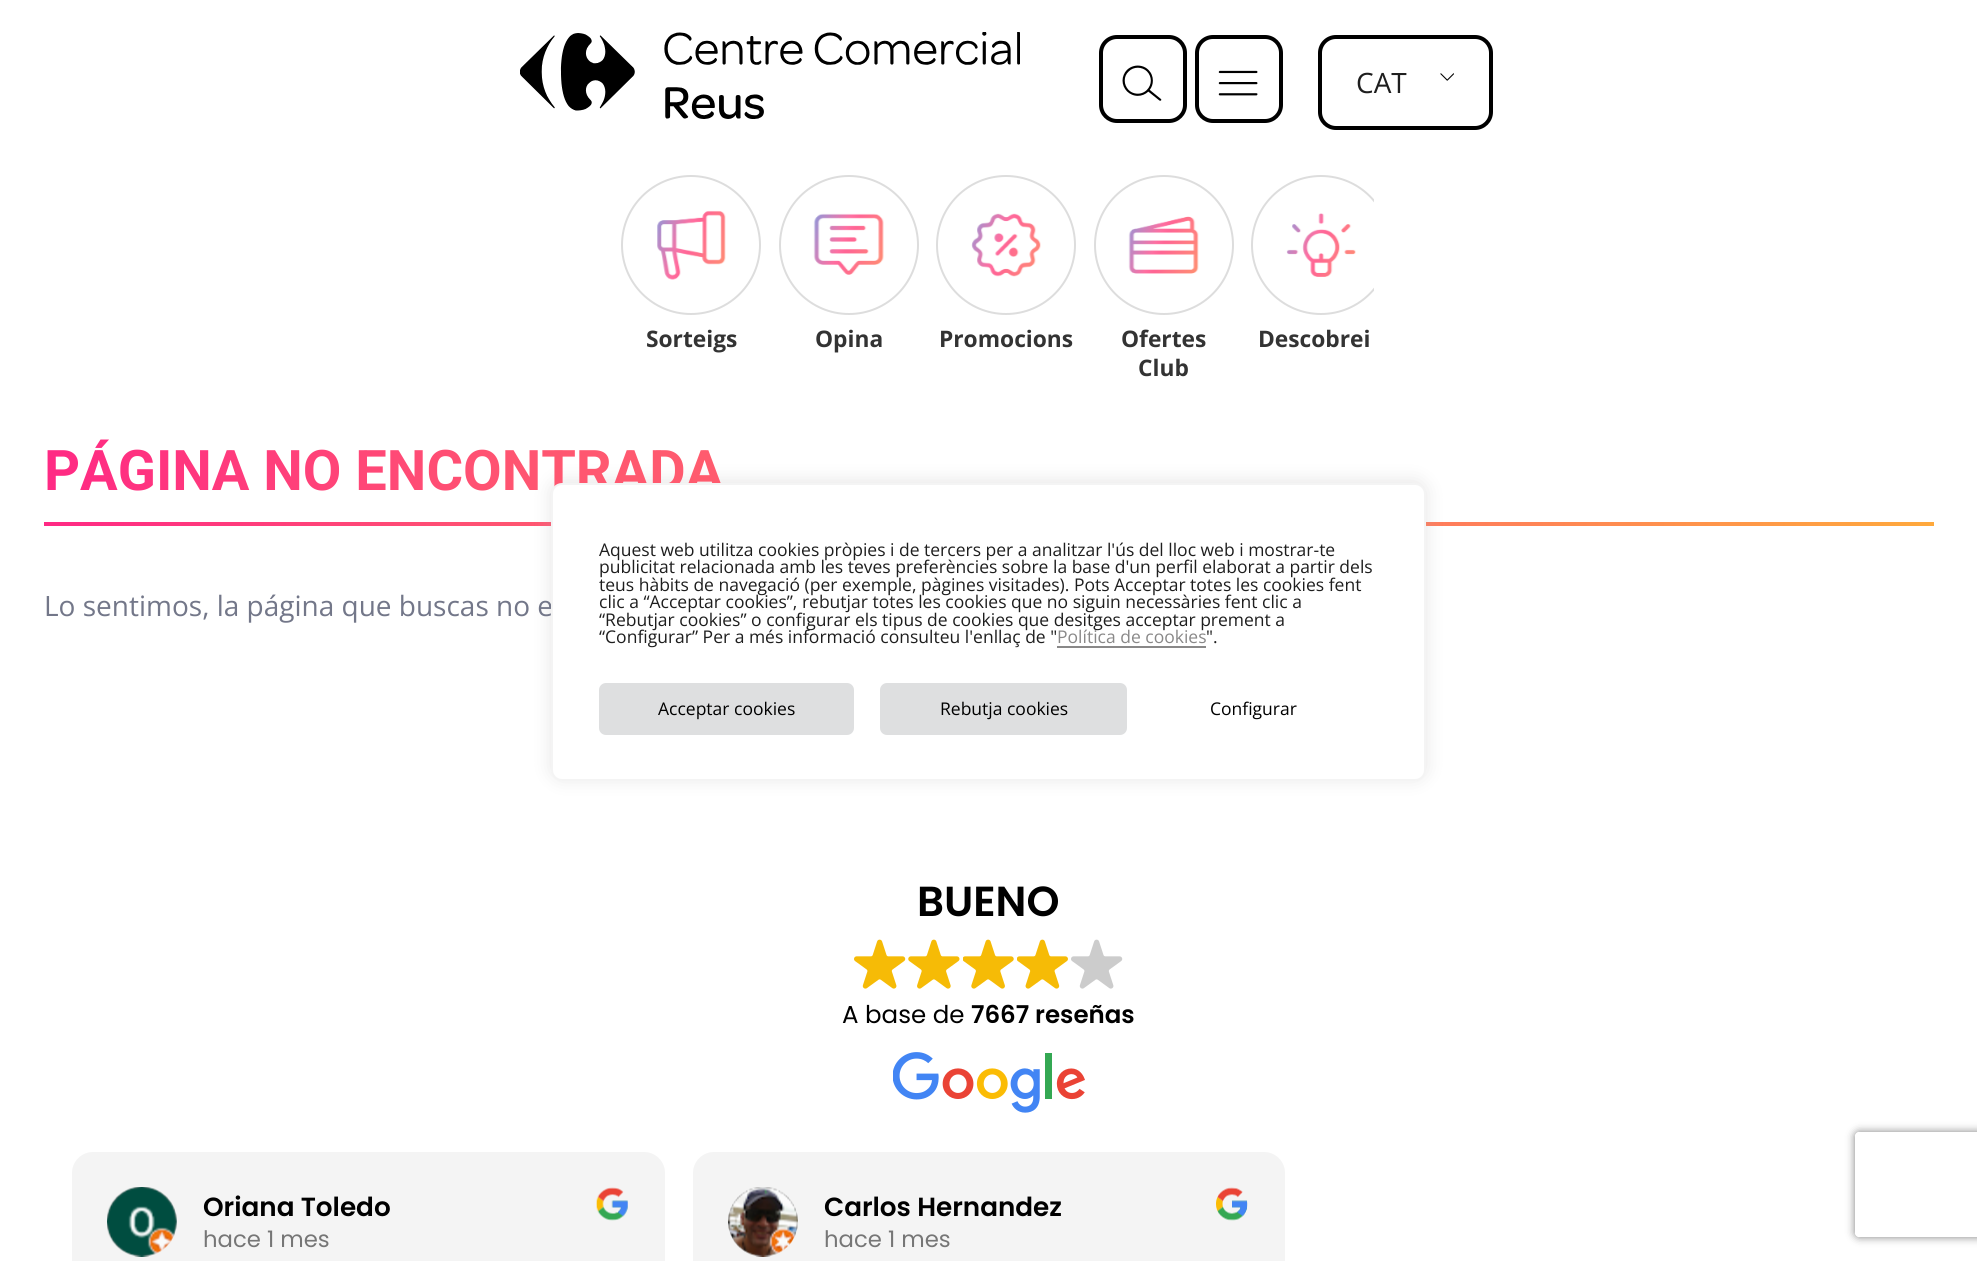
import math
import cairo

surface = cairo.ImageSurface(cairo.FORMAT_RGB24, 1977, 1261)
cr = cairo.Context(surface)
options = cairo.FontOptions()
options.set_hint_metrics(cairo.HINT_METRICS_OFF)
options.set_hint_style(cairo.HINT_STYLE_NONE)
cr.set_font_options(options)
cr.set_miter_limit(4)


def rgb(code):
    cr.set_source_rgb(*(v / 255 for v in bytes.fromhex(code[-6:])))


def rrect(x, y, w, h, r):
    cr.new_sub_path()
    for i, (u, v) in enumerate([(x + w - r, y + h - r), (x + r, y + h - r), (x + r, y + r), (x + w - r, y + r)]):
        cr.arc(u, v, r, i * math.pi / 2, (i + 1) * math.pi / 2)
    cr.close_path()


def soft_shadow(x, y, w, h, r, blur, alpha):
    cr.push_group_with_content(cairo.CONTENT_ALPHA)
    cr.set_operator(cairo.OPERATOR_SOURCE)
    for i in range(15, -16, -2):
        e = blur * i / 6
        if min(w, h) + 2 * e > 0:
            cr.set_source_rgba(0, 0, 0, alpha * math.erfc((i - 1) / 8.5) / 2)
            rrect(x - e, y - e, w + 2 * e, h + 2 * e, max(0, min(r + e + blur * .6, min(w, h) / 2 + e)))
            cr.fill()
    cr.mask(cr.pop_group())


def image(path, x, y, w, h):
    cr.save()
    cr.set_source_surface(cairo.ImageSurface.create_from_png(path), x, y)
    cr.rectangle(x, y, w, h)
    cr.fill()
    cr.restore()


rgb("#ffffff")
cr.paint()
image("img/1.png", 520, 32, 500, 87)
rrect(1101, 37, 84, 84, 16)
rgb("#000000")
cr.set_line_width(4)
cr.stroke()
image("img/2.png", 1122, 65, 40, 36)
rrect(1197, 37, 84, 84, 16)
cr.stroke()
image("img/3.png", 1218, 70, 40, 26)
image("img/4.png", 1440, 73, 14, 8)
rrect(1320, 37, 171, 91, 16)
cr.stroke()
cr.arc(691, 245, 69, 0, 2 * math.pi)
rgb("#dddddd")
cr.set_line_width(2)
cr.stroke()
image("img/5.png", 657, 210, 69, 70)
cr.arc(849, 245, 69, 0, 2 * math.pi)
cr.stroke()
image("img/6.png", 813, 213, 71, 62)
cr.arc(1006, 245, 69, 0, 2 * math.pi)
cr.stroke()
image("img/7.png", 971, 213, 70, 64)
cr.arc(1164, 245, 69, 0, 2 * math.pi)
cr.stroke()
image("img/8.png", 1128, 216, 71, 58)
cr.save()
cr.rectangle(604, 175, 770, 208)
cr.clip()
cr.arc(1321, 245, 69, 0, 2 * math.pi)
cr.stroke()
cr.restore()
image("img/9.png", 1286, 213, 70, 64)
gradient = cairo.LinearGradient(44, 523, 1934, 523)
gradient.add_color_stop_rgba(0, 1, 0.161, 0.518, 1)
gradient.add_color_stop_rgba(0.25, 1, 0.333, 0.443, 1)
gradient.add_color_stop_rgba(0.65, 1, 0.427, 0.4, 1)
gradient.add_color_stop_rgba(1, 1, 0.663, 0.235, 1)
cr.set_source(gradient)
cr.rectangle(44, 522, 1890, 4)
cr.fill()
rgb("#acabab")
soft_shadow(551, 481, 875, 298, 11, 9, 0.3)
image("img/10.png", 854, 939, 52, 50)
image("img/11.png", 908, 939, 52, 50)
image("img/12.png", 963, 939, 51, 50)
image("img/13.png", 1017, 939, 51, 50)
image("img/14.png", 1071, 939, 52, 50)
image("img/15.png", 893, 1052, 192, 61)
rgb("#f4f4f4")
rrect(72, 1152, 593, 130, 21)
cr.fill()
image("img/16.png", 107, 1187, 70, 70)
image("img/17.png", 596, 1187, 32, 34)
rrect(693, 1152, 592, 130, 21)
cr.fill()
image("img/18.png", 728, 1187, 70, 70)
image("img/19.png", 1216, 1187, 32, 34)
cr.save()
cr.set_fill_rule(cairo.FILL_RULE_EVEN_ODD)
cr.new_path()
cr.move_to(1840, 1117)
cr.line_to(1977, 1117)
cr.line_to(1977, 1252)
cr.line_to(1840, 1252)
cr.close_path()
cr.move_to(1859, 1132)
cr.line_to(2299, 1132)
cr.curve_to(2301, 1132, 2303, 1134, 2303, 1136)
cr.line_to(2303, 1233)
cr.curve_to(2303, 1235, 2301, 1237, 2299, 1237)
cr.line_to(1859, 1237)
cr.curve_to(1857, 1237, 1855, 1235, 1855, 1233)
cr.line_to(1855, 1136)
cr.curve_to(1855, 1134, 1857, 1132, 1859, 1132)
cr.close_path()
cr.clip()
rgb("#808080")
soft_shadow(1855, 1132, 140, 105, 4, 4.5, 1)
cr.restore()
cr.select_font_face("Open Sans")
cr.set_font_size(28)
rgb("#1e1e1e")
cr.move_to(1356, 93)
cr.show_text("CAT")
cr.select_font_face("Open Sans", cairo.FONT_SLANT_NORMAL, cairo.FONT_WEIGHT_BOLD)
cr.set_font_size(22.75)
rgb("#333333")
for x, y, s in [
    (646, 347, "Sorteigs"),
    (815, 347, "Opina"),
    (939, 347, "Promocions"),
    (1121, 347, "Ofertes"),
    (1138, 376, "Club"),
    (1258, 347, "Descobrei"),
]:
    cr.move_to(x, y)
    cr.show_text(s)
cr.select_font_face("Roboto", cairo.FONT_SLANT_NORMAL, cairo.FONT_WEIGHT_BOLD)
cr.set_font_size(56)
gradient = cairo.LinearGradient(44, 482, 1934, 482)
gradient.add_color_stop_rgba(0, 1, 0.161, 0.518, 1)
gradient.add_color_stop_rgba(0.25, 1, 0.333, 0.443, 1)
gradient.add_color_stop_rgba(0.65, 1, 0.427, 0.4, 1)
gradient.add_color_stop_rgba(1, 1, 0.663, 0.235, 1)
cr.set_source(gradient)
cr.move_to(44, 490)
cr.show_text("PÁGINA NO ENCONTRADA")
cr.select_font_face("Open Sans")
cr.set_font_size(28)
rgb("#737789")
cr.move_to(44, 616)
cr.show_text("Lo sentimos, la página que buscas no e")
rgb("#ffffff")
rrect(552, 484, 873, 296, 10)
cr.fill_preserve()
rgb("#f4f4f4")
cr.stroke()
cr.set_font_size(17.5)
rgb("#1e1e1e")
for x, y, s in [
    (599, 556, "Aquest web utilitza cookies pròpies i de tercers per a analitzar l'ús del lloc web i mostrar-te"),
    (599, 573, "publicitat relacionada amb les teves preferències sobre la base d'un perfil elaborat a partir dels"),
    (599, 591, "teus hàbits de navegació (per exemple, pàgines visitades). Pots Acceptar totes les cookies fent"),
    (599, 608, "clic a “Acceptar cookies”, rebutjar totes les cookies que no siguin necessàries fent clic a"),
    (599, 626, "“Rebutjar cookies” o configurar els tipus de cookies que desitges acceptar prement a"),
    (599, 643, "“Configurar” Per a més informació consulteu l'enllaç de \""),
]:
    cr.move_to(x, y)
    cr.show_text(s)
rgb("#898888")
cr.move_to(1057, 643)
cr.show_text("Política de cookies")
cr.rectangle(1057, 646, 149, 2)
cr.fill()
rgb("#1e1e1e")
cr.move_to(1206, 643)
cr.show_text("\".")
rgb("#dedfe0")
rrect(599, 683, 255, 52, 7)
cr.fill()
rgb("#000000")
cr.move_to(658, 715)
cr.show_text("Acceptar cookies")
rgb("#dedfe0")
rrect(880, 683, 247, 52, 7)
cr.fill()
rgb("#000000")
cr.move_to(940, 715)
cr.show_text("Rebutja cookies")
cr.move_to(1210, 715)
cr.show_text("Configurar")
cr.select_font_face("Poppins SemiBold")
cr.set_font_size(42)
cr.move_to(917, 916)
cr.show_text("BUENO")
cr.select_font_face("Poppins")
cr.set_font_size(24.5)
cr.move_to(842, 1023)
cr.show_text("A base de")
cr.select_font_face("Poppins SemiBold")
cr.move_to(971, 1023)
cr.show_text("7667 reseñas")
cr.set_font_size(26.25)
cr.move_to(203, 1216)
cr.show_text("Oriana Toledo")
cr.select_font_face("Poppins")
cr.set_font_size(22.75)
rgb("#767676")
cr.move_to(203, 1247)
cr.show_text("hace 1 mes")
cr.select_font_face("Poppins SemiBold")
cr.set_font_size(26.25)
rgb("#000000")
cr.move_to(824, 1216)
cr.show_text("Carlos Hernandez")
cr.select_font_face("Poppins")
cr.set_font_size(22.75)
rgb("#767676")
cr.move_to(824, 1247)
cr.show_text("hace 1 mes")
surface.write_to_png("page.png")
